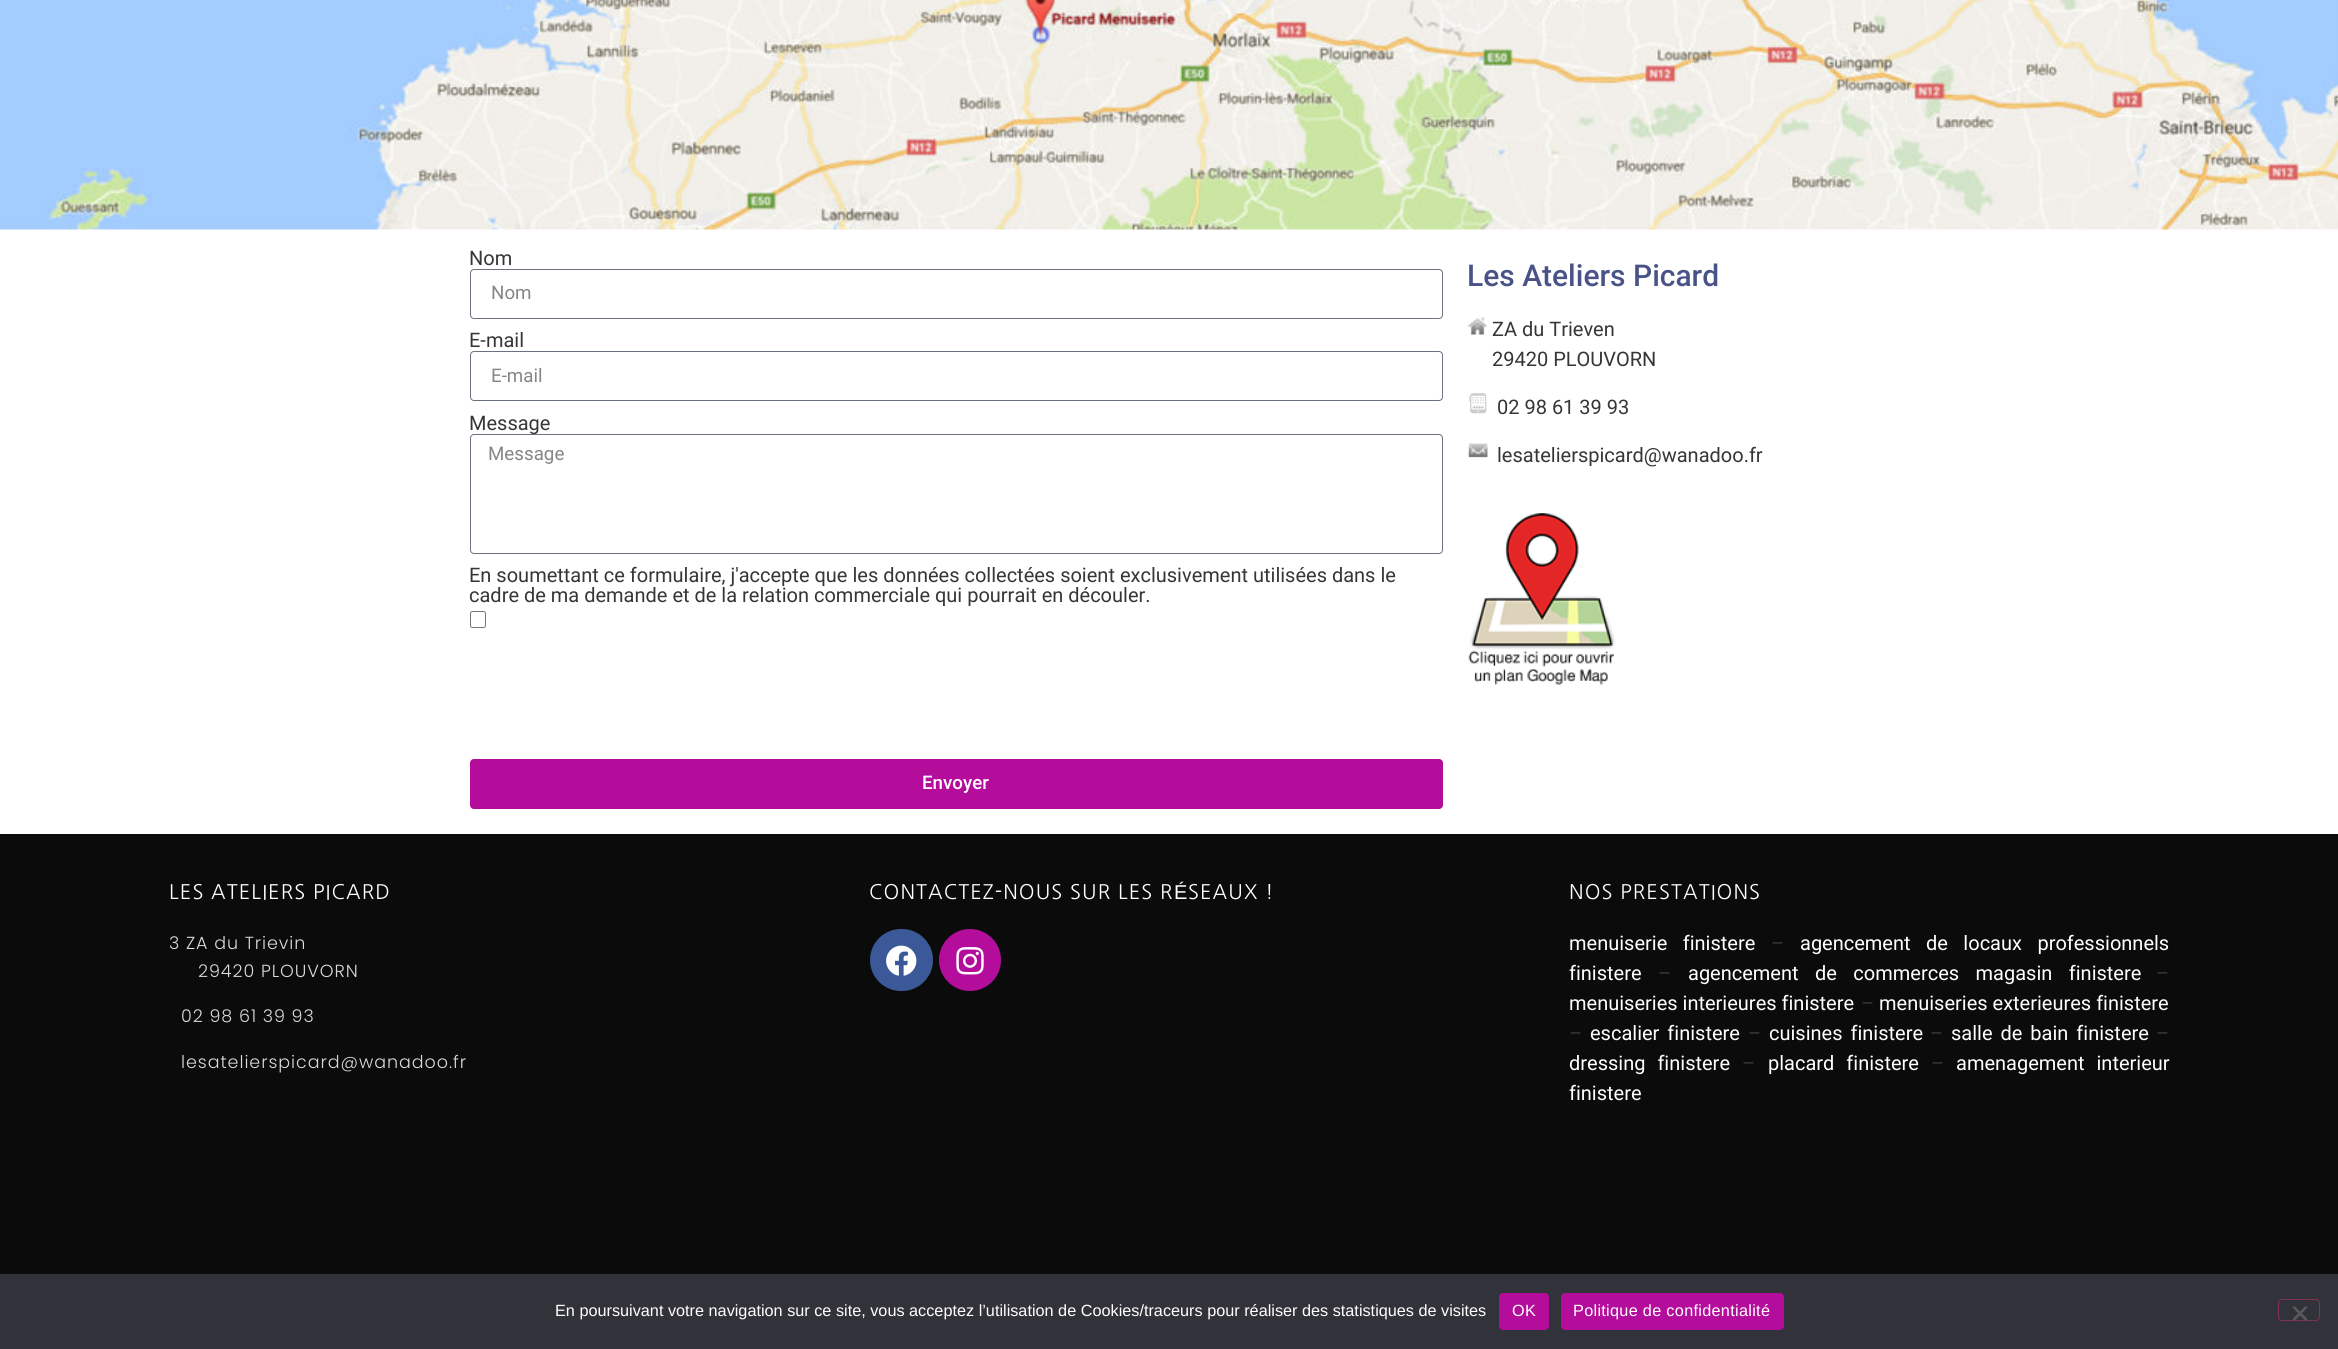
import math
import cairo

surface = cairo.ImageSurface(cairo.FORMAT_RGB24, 2338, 1349)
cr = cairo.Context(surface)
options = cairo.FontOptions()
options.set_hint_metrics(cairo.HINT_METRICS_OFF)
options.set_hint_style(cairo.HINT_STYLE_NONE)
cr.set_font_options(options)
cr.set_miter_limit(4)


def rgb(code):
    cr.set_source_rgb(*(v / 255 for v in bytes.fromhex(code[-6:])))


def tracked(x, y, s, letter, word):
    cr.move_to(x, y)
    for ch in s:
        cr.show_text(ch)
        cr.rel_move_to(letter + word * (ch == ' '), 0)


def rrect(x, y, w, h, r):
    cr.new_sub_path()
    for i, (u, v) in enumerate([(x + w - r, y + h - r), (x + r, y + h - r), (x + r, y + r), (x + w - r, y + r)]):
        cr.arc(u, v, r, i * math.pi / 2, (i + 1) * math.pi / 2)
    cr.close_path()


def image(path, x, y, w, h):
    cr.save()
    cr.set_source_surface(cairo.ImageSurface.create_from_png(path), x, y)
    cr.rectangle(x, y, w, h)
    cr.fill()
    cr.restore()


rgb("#ffffff")
cr.paint()
image("img/1.png", 0, 0, 2338, 230)
rrect(470.5, 269.5, 972, 49, 3.5)
rgb("#69727d")
cr.set_line_width(1)
cr.stroke()
rrect(470.5, 351.5, 972, 49, 3.5)
cr.stroke()
rrect(470.5, 611.5, 15, 16, 2)
rgb("#767676")
cr.stroke()
rgb("#b40d9c")
rrect(470, 759, 973, 50, 4)
cr.fill()
image("img/2.png", 1467, 317, 21, 18)
image("img/3.png", 1468, 393, 19, 21)
image("img/4.png", 1468, 443, 20, 15)
image("img/5.png", 1468, 513, 148, 172)
rgb("#0b0b0b")
cr.rectangle(0, 834, 2338, 440)
cr.fill()
rgb("#3b5998")
rrect(870, 929, 63, 62, 31)
cr.fill()
image("img/6.png", 886, 945, 31, 31)
rgb("#b40d9c")
cr.arc(970, 960, 31, 0, 2 * math.pi)
cr.fill()
image("img/7.png", 956, 947, 28, 28)
rgb("#32323a")
cr.rectangle(0, 1274, 2338, 75)
cr.fill()
rgb("#b40d9c")
rrect(1499, 1293, 50, 37, 4)
cr.fill()
rrect(1561, 1293, 223, 37, 4)
cr.fill()
rrect(2278.5, 1299.5, 41, 21, 3.5)
rgb("#7f3350")
cr.stroke()
rgb("#59595d")
cr.new_path()
cr.move_to(2305.5, 1306)
cr.line_to(2307.5, 1307.5)
cr.line_to(2294.5, 1321)
cr.line_to(2292.5, 1319)
cr.close_path()
cr.fill()
cr.new_path()
cr.move_to(2292.5, 1307.5)
cr.line_to(2294.5, 1306)
cr.line_to(2307.5, 1319)
cr.line_to(2305.5, 1321)
cr.close_path()
cr.fill()
cr.select_font_face("Roboto")
cr.set_font_size(20)
rgb("#363636")
cr.move_to(469, 265)
cr.show_text("Nom")
cr.set_font_size(18.75)
rgb("#868686")
cr.move_to(491, 299)
cr.show_text("Nom")
cr.set_font_size(20)
rgb("#363636")
cr.move_to(469, 347)
cr.show_text("E-mail")
cr.set_font_size(18.75)
rgb("#868686")
cr.move_to(491, 382)
cr.show_text("E-mail")
cr.set_font_size(20)
rgb("#363636")
cr.move_to(469, 430)
cr.show_text("Message")
rgb("#ffffff")
rrect(470.5, 434.5, 972, 119, 3.5)
cr.fill_preserve()
rgb("#69727d")
cr.stroke()
cr.set_font_size(18.75)
rgb("#868686")
cr.move_to(488, 460)
cr.show_text("Message")
cr.set_font_size(20)
rgb("#363636")
cr.move_to(469, 582)
cr.show_text("En soumettant ce formulaire, j'accepte que les données collectées soient exclusivement utilisées dans le")
cr.move_to(469, 602)
cr.show_text("cadre de ma demande et de la relation commerciale qui pourrait en découler.")
cr.select_font_face("Roboto Medium")
cr.set_font_size(18.75)
rgb("#ffffff")
cr.move_to(922, 789)
cr.show_text("Envoyer")
cr.set_font_size(30)
rgb("#4a5387")
cr.move_to(1467, 286)
cr.show_text("Les Ateliers Picard")
cr.select_font_face("Roboto")
cr.set_font_size(20)
rgb("#363636")
for x, y, s in [
    (1492, 336, "ZA du Trieven"),
    (1492, 366, "29420 PLOUVORN"),
    (1497, 414, "02 98 61 39 93"),
    (1497, 462, "lesatelierspicard@wanadoo.fr"),
]:
    cr.move_to(x, y)
    cr.show_text(s)
cr.select_font_face("NanumGothic")
rgb("#ffffff")
tracked(169, 899, "LES ATELIERS PICARD", 1.1, 0)
cr.select_font_face("Poppins Light")
cr.set_font_size(17.5)
rgb("#dadada")
for x, y, s in [
    (169, 949, "3 ZA du Trievin"),
    (198, 977, "29420 PLOUVORN"),
    (181, 1022, "02 98 61 39 93"),
    (181, 1068, "lesatelierspicard@wanadoo.fr"),
]:
    tracked(x, y, s, 0.95, 0)
cr.select_font_face("NanumGothic")
cr.set_font_size(20)
rgb("#ffffff")
tracked(869, 899, "CONTACTEZ-NOUS SUR LES R", 1.1, 0)
cr.select_font_face("Liberation Sans")
tracked(1174, 899, "É", 1.1, 0)
cr.select_font_face("NanumGothic")
tracked(1188, 899, "SEAUX !", 1.1, 0)
tracked(1569, 899, "NOS PRESTATIONS", 1.1, 0)
cr.select_font_face("Roboto")
tracked(1569, 950, "menuiserie finistere", 0, 10.5)
rgb("#363636")
cr.move_to(1771, 950)
cr.show_text("–")
rgb("#ffffff")
tracked(1800, 950, "agencement de locaux professionnels", 0, 10.5)
cr.move_to(1569, 980)
cr.show_text("finistere")
rgb("#363636")
cr.move_to(1658, 980)
cr.show_text("–")
rgb("#ffffff")
tracked(1688, 980, "agencement de commerces magasin finistere", 0, 11.5)
rgb("#363636")
cr.move_to(2156, 980)
cr.show_text("–")
rgb("#ffffff")
cr.move_to(1569, 1010)
cr.show_text("menuiseries interieures finistere")
rgb("#363636")
cr.move_to(1861, 1010)
cr.show_text("–")
rgb("#ffffff")
cr.move_to(1879, 1010)
cr.show_text("menuiseries exterieures finistere")
rgb("#363636")
cr.move_to(1569, 1040)
cr.show_text("–")
rgb("#ffffff")
tracked(1590, 1040, "escalier finistere", 0, 3)
rgb("#363636")
cr.move_to(1748, 1040)
cr.show_text("–")
rgb("#ffffff")
tracked(1769, 1040, "cuisines finistere", 0, 3)
rgb("#363636")
cr.move_to(1930, 1040)
cr.show_text("–")
rgb("#ffffff")
tracked(1951, 1040, "salle de bain finistere", 0, 3)
rgb("#363636")
cr.move_to(2156, 1040)
cr.show_text("–")
rgb("#ffffff")
tracked(1569, 1070, "dressing finistere", 0, 7)
rgb("#363636")
cr.move_to(1742, 1070)
cr.show_text("–")
rgb("#ffffff")
tracked(1768, 1070, "placard finistere", 0, 7)
rgb("#363636")
cr.move_to(1931, 1070)
cr.show_text("–")
rgb("#ffffff")
tracked(1956, 1070, "amenagement interieur", 0, 7)
cr.move_to(1569, 1100)
cr.show_text("finistere")
cr.select_font_face("Liberation Sans")
cr.set_font_size(16.25)
cr.move_to(555, 1316)
cr.show_text("En poursuivant votre navigation sur ce site, vous acceptez l’utilisation de Cookies/traceurs pour réaliser des statistiques de visites")
tracked(1512, 1316, "OK", 0.3, 0)
tracked(1573, 1316, "Politique de confidentialité", 0.3, 0)
surface.write_to_png("page.png")
